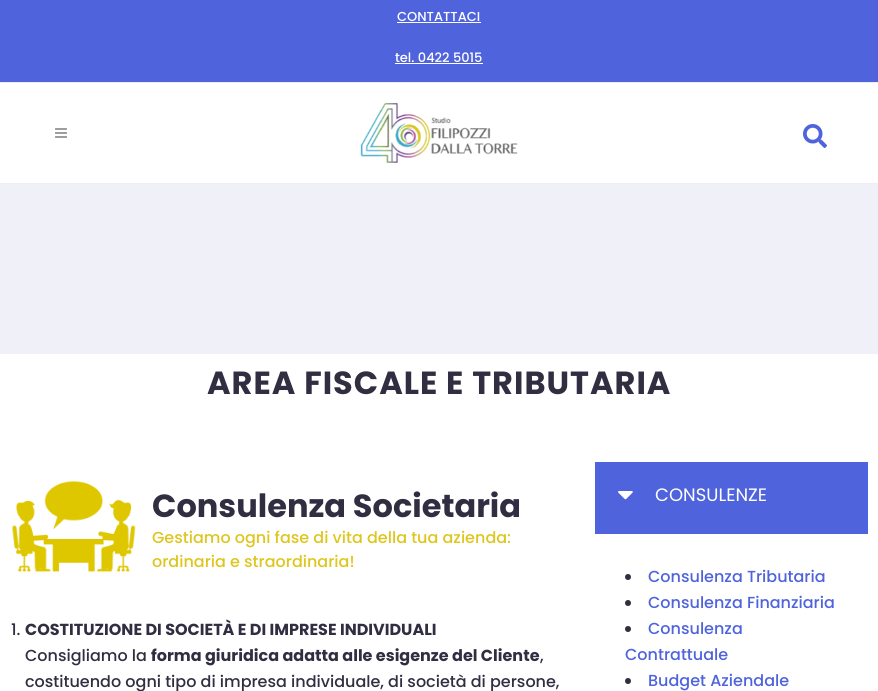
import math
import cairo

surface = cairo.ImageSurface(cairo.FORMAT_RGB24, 878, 691)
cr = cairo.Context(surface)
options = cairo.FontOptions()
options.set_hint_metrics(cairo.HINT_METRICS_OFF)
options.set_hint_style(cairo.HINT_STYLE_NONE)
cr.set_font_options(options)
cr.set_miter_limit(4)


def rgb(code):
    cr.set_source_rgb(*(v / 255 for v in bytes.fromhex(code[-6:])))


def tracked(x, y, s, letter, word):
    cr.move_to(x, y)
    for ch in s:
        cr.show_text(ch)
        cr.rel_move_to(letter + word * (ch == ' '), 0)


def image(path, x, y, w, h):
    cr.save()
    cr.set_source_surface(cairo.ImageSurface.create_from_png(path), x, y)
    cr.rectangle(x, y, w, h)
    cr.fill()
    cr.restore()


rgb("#ffffff")
cr.paint()
for x, y, w, h, color in [
    (0, 0, 878, 82, "#4f63dc"),
    (0, 82, 878, 1, "#eeeeee"),
    (397, 22, 84, 1, "#ffffff"),
    (395, 63, 88, 1, "#ffffff"),
    (0, 183, 878, 1, "#eeeeee"),
]:
    rgb(color)
    cr.rectangle(x, y, w, h)
    cr.fill()
image("img/1.png", 55, 128, 12, 10)
image("img/2.png", 360, 103, 158, 60)
image("img/3.png", 803, 124, 24, 24)
rgb("#f0f0f8")
cr.rectangle(0, 184, 878, 170)
cr.fill()
image("img/4.png", 12, 481, 124, 91)
rgb("#4f63dc")
cr.rectangle(595, 462, 273, 72)
cr.fill()
image("img/5.png", 618, 491, 15, 9)
rgb("#312e42")
cr.arc(628, 577, 3, 0, 2 * math.pi)
cr.fill()
cr.arc(628, 603, 3, 0, 2 * math.pi)
cr.fill()
cr.arc(628, 629, 3, 0, 2 * math.pi)
cr.fill()
cr.arc(628, 681, 3, 0, 2 * math.pi)
cr.fill()
cr.select_font_face("Poppins Medium")
cr.set_font_size(13)
rgb("#ffffff")
cr.move_to(397, 21)
cr.show_text("CONTATTACI")
cr.move_to(395, 62)
cr.show_text("tel. 0422 5015")
cr.select_font_face("Poppins", cairo.FONT_SLANT_NORMAL, cairo.FONT_WEIGHT_BOLD)
cr.set_font_size(32)
rgb("#312e42")
tracked(207, 394, "AREA FISCALE E TRIBUTARIA", 1, 0)
cr.move_to(152, 517)
cr.show_text("Consulenza Societaria")
cr.select_font_face("Poppins Medium")
cr.set_font_size(16)
rgb("#dec61e")
cr.move_to(152, 543)
cr.show_text("Gestiamo ogni fase di vita della tua azienda:")
cr.move_to(152, 567)
cr.show_text("ordinaria e straordinaria!")
rgb("#312e42")
cr.move_to(11, 635)
cr.show_text("1.")
cr.select_font_face("Poppins", cairo.FONT_SLANT_NORMAL, cairo.FONT_WEIGHT_BOLD)
cr.move_to(25, 635)
cr.show_text("COSTITUZIONE DI SOCIETÀ E DI IMPRESE INDIVIDUALI")
cr.select_font_face("Poppins Medium")
cr.move_to(25, 661)
cr.show_text("Consigliamo la")
cr.select_font_face("Poppins", cairo.FONT_SLANT_NORMAL, cairo.FONT_WEIGHT_BOLD)
cr.move_to(151, 661)
cr.show_text("forma giuridica adatta alle esigenze del Cliente")
cr.select_font_face("Poppins Medium")
cr.move_to(540, 661)
cr.show_text(",")
cr.move_to(25, 687)
cr.show_text("costituendo ogni tipo di impresa individuale, di società di persone,")
cr.select_font_face("Poppins")
cr.set_font_size(18)
rgb("#ffffff")
cr.move_to(655, 501)
cr.show_text("CONSULENZE")
cr.select_font_face("Poppins Medium")
cr.set_font_size(16)
rgb("#4f63dc")
for x, y, s in [
    (648, 582, "Consulenza Tributaria"),
    (648, 608, "Consulenza Finanziaria"),
    (648, 634, "Consulenza"),
    (625, 660, "Contrattuale"),
    (648, 686, "Budget Aziendale"),
]:
    cr.move_to(x, y)
    cr.show_text(s)
surface.write_to_png("page.png")
